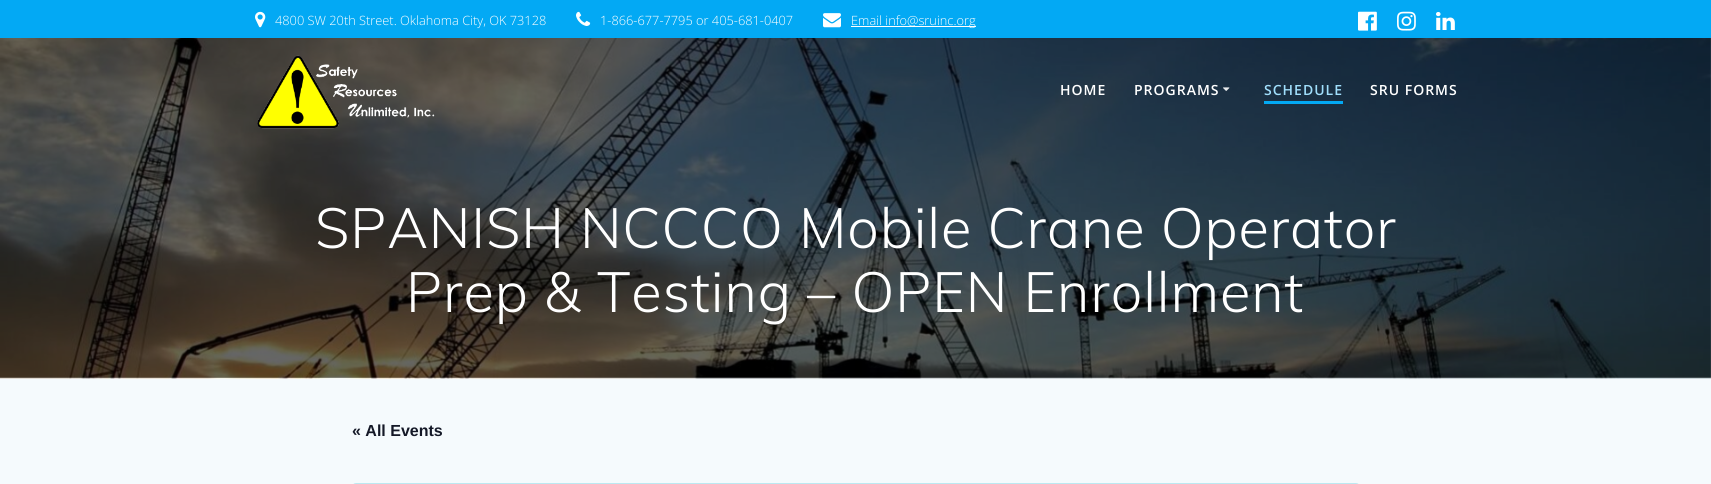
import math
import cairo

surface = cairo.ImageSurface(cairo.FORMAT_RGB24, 1711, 484)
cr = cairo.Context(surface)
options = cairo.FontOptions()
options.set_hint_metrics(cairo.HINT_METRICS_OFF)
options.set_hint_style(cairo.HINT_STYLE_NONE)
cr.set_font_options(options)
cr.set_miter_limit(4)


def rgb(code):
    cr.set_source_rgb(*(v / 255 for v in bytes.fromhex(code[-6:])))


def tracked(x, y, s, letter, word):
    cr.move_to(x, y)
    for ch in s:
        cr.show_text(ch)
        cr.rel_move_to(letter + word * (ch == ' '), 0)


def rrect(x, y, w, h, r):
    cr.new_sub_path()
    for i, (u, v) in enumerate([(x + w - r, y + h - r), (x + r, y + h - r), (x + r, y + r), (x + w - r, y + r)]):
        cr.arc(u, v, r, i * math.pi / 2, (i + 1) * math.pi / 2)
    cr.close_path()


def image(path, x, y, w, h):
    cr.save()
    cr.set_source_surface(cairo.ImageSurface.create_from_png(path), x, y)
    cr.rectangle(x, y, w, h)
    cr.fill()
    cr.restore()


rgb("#f5fafd")
cr.paint()
rgb("#03a9f4")
cr.rectangle(0, 0, 1711, 38)
cr.fill()
image("img/1.png", 255, 11, 11, 17)
image("img/2.png", 576, 11, 15, 15)
image("img/3.png", 823, 13, 18, 15)
rgb("#ffffff")
cr.rectangle(851, 26, 125, 1)
cr.fill()
image("img/4.png", 1358, 11, 19, 20)
image("img/5.png", 1397, 11, 19, 20)
image("img/6.png", 1436, 12, 19, 18)
image("img/9.png", 0, 38, 1711, 341)
image("img/7.png", 257, 55, 178, 74)
image("img/8.png", 1223, 87, 7, 4)
rgb("#03a9f4")
cr.rectangle(1264, 101, 79, 3)
cr.fill()
rrect(352.5, 483.5, 1007, 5, 3.5)
rgb("#bce8f1")
cr.set_line_width(1)
cr.stroke()
cr.select_font_face("Open Sans Light")
cr.set_font_size(12.8)
rgb("#ffffff")
for x, y, s in [
    (275, 25, "4800 SW 20th Street. Oklahoma City, OK 73128"),
    (600, 25, "1-866-677-7795 or 405-681-0407"),
    (851, 25, "Email info@sruinc.org"),
]:
    cr.move_to(x, y)
    cr.show_text(s)
cr.select_font_face("Open Sans SemiBold")
cr.set_font_size(14)
tracked(1060, 95, "HOME", 1, 0)
tracked(1134, 95, "PROGRAMS", 1, 0)
rgb("#a0defb")
tracked(1264, 95, "SCHEDULE", 1, 0)
rgb("#ffffff")
tracked(1370, 95, "SRU FORMS", 1, 0)
cr.select_font_face("Muli Light")
cr.set_font_size(56)
tracked(315, 248, "SPANISH NCCCO Mobile Crane Operator", 0.9, 0)
tracked(406, 312, "Prep & Testing – OPEN Enrollment", 0.9, 0)
cr.select_font_face("Liberation Sans", cairo.FONT_SLANT_NORMAL, cairo.FONT_WEIGHT_BOLD)
cr.set_font_size(16)
rgb("#141827")
cr.move_to(352, 436)
cr.show_text("« All Events")
surface.write_to_png("page.png")
